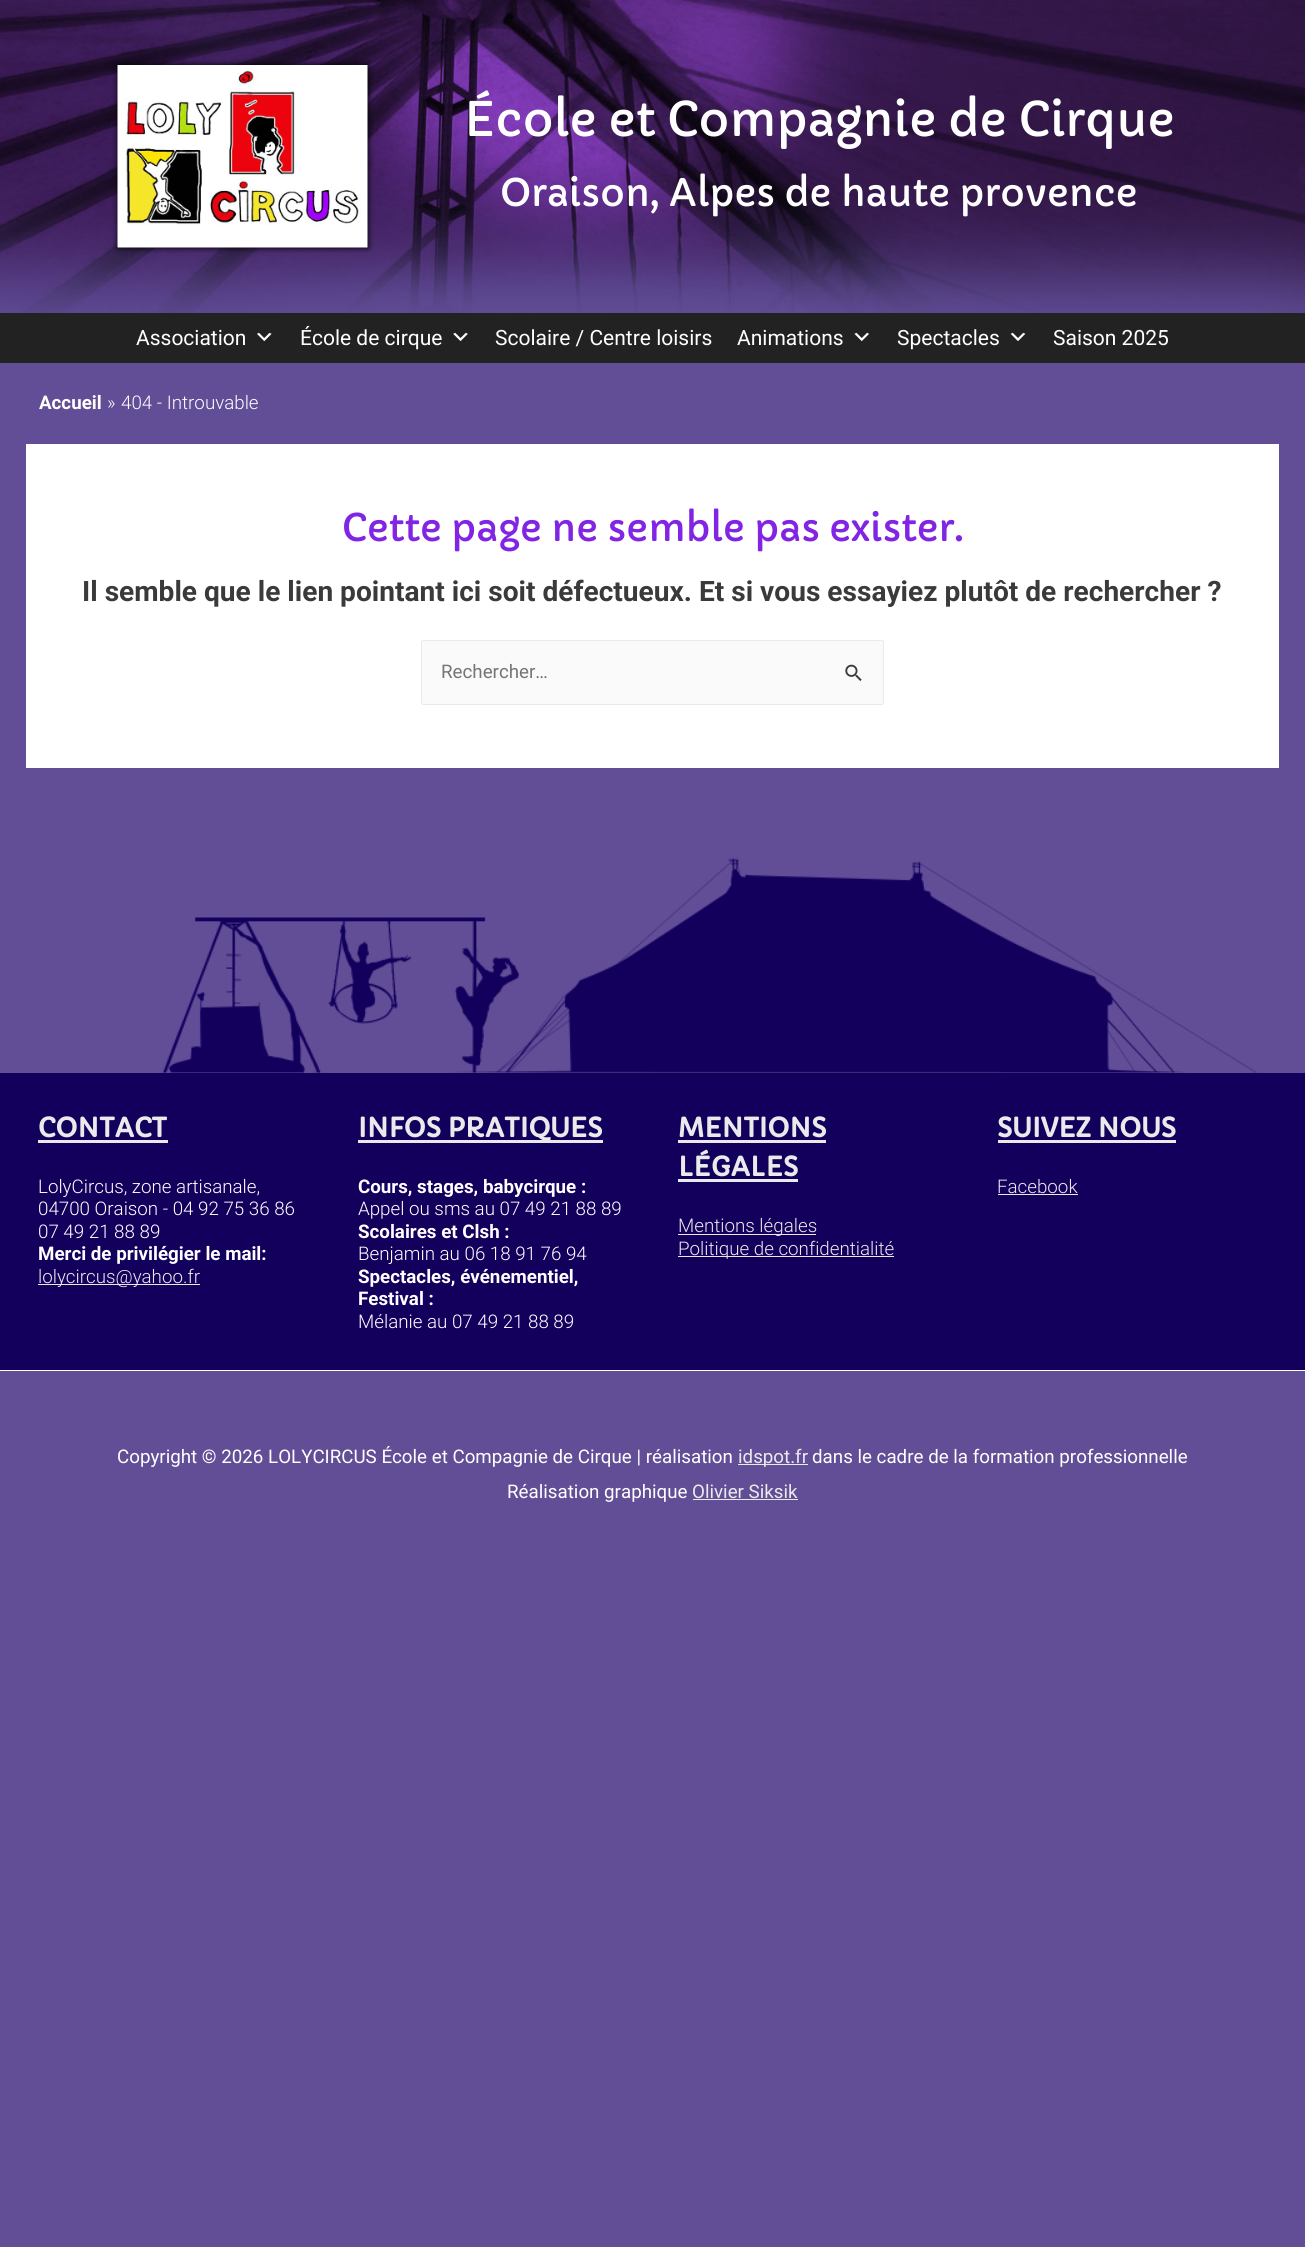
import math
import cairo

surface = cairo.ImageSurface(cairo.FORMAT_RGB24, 1305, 2247)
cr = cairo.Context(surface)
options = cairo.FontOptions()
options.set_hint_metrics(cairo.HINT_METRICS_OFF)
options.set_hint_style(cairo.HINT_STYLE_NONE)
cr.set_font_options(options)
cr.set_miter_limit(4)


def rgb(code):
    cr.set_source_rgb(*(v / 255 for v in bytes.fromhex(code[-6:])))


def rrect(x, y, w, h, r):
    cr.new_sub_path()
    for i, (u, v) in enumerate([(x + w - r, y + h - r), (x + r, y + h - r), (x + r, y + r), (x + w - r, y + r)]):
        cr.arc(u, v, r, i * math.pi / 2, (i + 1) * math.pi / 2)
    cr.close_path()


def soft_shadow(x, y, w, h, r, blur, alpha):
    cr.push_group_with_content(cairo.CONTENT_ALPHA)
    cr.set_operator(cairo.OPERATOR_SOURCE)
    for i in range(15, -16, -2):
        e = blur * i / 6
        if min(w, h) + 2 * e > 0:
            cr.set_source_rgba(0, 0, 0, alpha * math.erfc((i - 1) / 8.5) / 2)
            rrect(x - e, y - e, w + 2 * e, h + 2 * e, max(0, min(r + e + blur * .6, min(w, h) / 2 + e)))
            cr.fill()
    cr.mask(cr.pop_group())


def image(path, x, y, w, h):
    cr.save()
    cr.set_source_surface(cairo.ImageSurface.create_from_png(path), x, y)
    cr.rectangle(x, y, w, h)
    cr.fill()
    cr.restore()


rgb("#624e96")
cr.paint()
image("img/1.png", 0, 0, 1305, 313)
rgb("#000000")
soft_shadow(118, 65, 250, 183, 0, 3, 1)
image("img/2.png", 117, 65, 251, 183)
rgb("#222222")
cr.rectangle(0, 313, 1305, 50)
cr.fill()
image("img/3.png", 257, 332, 15, 10)
image("img/4.png", 453, 332, 15, 10)
image("img/5.png", 854, 332, 15, 10)
image("img/6.png", 1010, 332, 16, 9)
rgb("#ffffff")
cr.rectangle(26, 444, 1253, 324)
cr.fill()
rgb("#fafafa")
rrect(421.5, 640.5, 462, 64, 2)
cr.fill_preserve()
rgb("#eaeaea")
cr.set_line_width(1)
cr.stroke()
image("img/7.png", 845, 664, 17, 17)
image("img/8.png", 162, 857, 1095, 216)
for x, y, w, h, color in [
    (0, 1073, 1305, 297, "#13005d"),
    (38, 1140, 130, 3, "#eaeaea"),
    (38, 1284, 162, 1, "#eaeaea"),
    (358, 1140, 245, 3, "#eaeaea"),
    (678, 1140, 148, 3, "#eaeaea"),
    (678, 1179, 120, 3, "#eaeaea"),
    (678, 1234, 138, 1, "#eaeaea"),
    (678, 1256, 216, 1, "#eaeaea"),
    (998, 1140, 178, 3, "#eaeaea"),
    (998, 1194, 80, 1, "#eaeaea"),
    (0, 1370, 1305, 1, "#ffffff"),
    (738, 1464, 70, 1, "#eaeaea"),
    (693, 1499, 105, 1, "#eaeaea"),
]:
    rgb(color)
    cr.rectangle(x, y, w, h)
    cr.fill()
cr.select_font_face("Capriola")
cr.set_font_size(46.9)
rgb("#ffffff")
cr.move_to(464, 136)
cr.show_text("École et Compagnie de Cirque")
cr.set_font_size(37.5)
cr.move_to(500, 206)
cr.show_text("Oraison, Alpes de haute provence")
cr.select_font_face("Roboto")
cr.set_font_size(21)
for x, y, s in [
    (136, 345, "Association"),
    (300, 345, "École de cirque"),
    (495, 345, "Scolaire / Centre loisirs"),
    (737, 345, "Animations"),
    (897, 345, "Spectacles"),
    (1053, 345, "Saison 2025"),
]:
    cr.move_to(x, y)
    cr.show_text(s)
cr.select_font_face("Roboto", cairo.FONT_SLANT_NORMAL, cairo.FONT_WEIGHT_BOLD)
cr.set_font_size(18.75)
cr.move_to(39, 409)
cr.show_text("Accueil")
cr.select_font_face("Roboto Light")
cr.move_to(107, 409)
cr.show_text("»")
cr.move_to(121, 409)
cr.show_text("404 - Introuvable")
cr.select_font_face("Capriola")
cr.set_font_size(37.5)
rgb("#8224e3")
cr.move_to(342, 541)
cr.show_text("Cette page ne semble pas exister.")
cr.select_font_face("Roboto", cairo.FONT_SLANT_NORMAL, cairo.FONT_WEIGHT_BOLD)
cr.set_font_size(28.1)
rgb("#3a3a3a")
cr.move_to(82, 601)
cr.show_text("Il semble que le lien pointant ici soit défectueux. Et si vous essayiez plutôt de rechercher ?")
cr.select_font_face("Roboto")
cr.set_font_size(18.75)
rgb("#757575")
cr.move_to(441, 678)
cr.show_text("Rechercher…")
cr.select_font_face("Capriola", cairo.FONT_SLANT_NORMAL, cairo.FONT_WEIGHT_BOLD)
cr.set_font_size(26.25)
rgb("#eaeaea")
cr.move_to(38, 1137)
cr.show_text("CONTACT")
cr.select_font_face("Roboto Light")
cr.set_font_size(18.75)
rgb("#ffffff")
for x, y, s in [
    (38, 1193, "LolyCircus, zone artisanale,"),
    (38, 1215, "04700 Oraison - 04 92 75 36 86"),
    (38, 1238, "07 49 21 88 89"),
]:
    cr.move_to(x, y)
    cr.show_text(s)
cr.select_font_face("Roboto", cairo.FONT_SLANT_NORMAL, cairo.FONT_WEIGHT_BOLD)
cr.move_to(38, 1260)
cr.show_text("Merci de privilégier le mail:")
cr.select_font_face("Roboto Light")
rgb("#eaeaea")
cr.move_to(38, 1283)
cr.show_text("lolycircus@yahoo.fr")
cr.select_font_face("Capriola", cairo.FONT_SLANT_NORMAL, cairo.FONT_WEIGHT_BOLD)
cr.set_font_size(26.25)
cr.move_to(358, 1137)
cr.show_text("INFOS PRATIQUES")
cr.select_font_face("Roboto", cairo.FONT_SLANT_NORMAL, cairo.FONT_WEIGHT_BOLD)
cr.set_font_size(18.75)
rgb("#ffffff")
cr.move_to(358, 1193)
cr.show_text("Cours, stages, babycirque :")
cr.select_font_face("Roboto Light")
cr.move_to(358, 1215)
cr.show_text("Appel ou sms au 07 49 21 88 89")
cr.select_font_face("Roboto", cairo.FONT_SLANT_NORMAL, cairo.FONT_WEIGHT_BOLD)
cr.move_to(358, 1238)
cr.show_text("Scolaires et Clsh :")
cr.select_font_face("Roboto Light")
cr.move_to(358, 1260)
cr.show_text("Benjamin au 06 18 91 76 94")
cr.select_font_face("Roboto", cairo.FONT_SLANT_NORMAL, cairo.FONT_WEIGHT_BOLD)
cr.move_to(358, 1283)
cr.show_text("Spectacles, événementiel,")
cr.move_to(358, 1305)
cr.show_text("Festival :")
cr.select_font_face("Roboto Light")
cr.move_to(358, 1328)
cr.show_text("Mélanie au 07 49 21 88 89")
cr.select_font_face("Capriola", cairo.FONT_SLANT_NORMAL, cairo.FONT_WEIGHT_BOLD)
cr.set_font_size(26.25)
rgb("#eaeaea")
cr.move_to(678, 1137)
cr.show_text("MENTIONS")
cr.move_to(678, 1176)
cr.show_text("LÉGALES")
cr.select_font_face("Roboto Light")
cr.set_font_size(18.75)
cr.move_to(678, 1232)
cr.show_text("Mentions légales")
cr.move_to(678, 1255)
cr.show_text("Politique de confidentialité")
cr.select_font_face("Capriola", cairo.FONT_SLANT_NORMAL, cairo.FONT_WEIGHT_BOLD)
cr.set_font_size(26.25)
cr.move_to(997, 1137)
cr.show_text("SUIVEZ NOUS")
cr.select_font_face("Roboto Light")
cr.set_font_size(18.75)
cr.move_to(997, 1193)
cr.show_text("Facebook")
cr.select_font_face("Roboto")
rgb("#ffffff")
cr.move_to(117, 1463)
cr.show_text("Copyright © 2026 LOLYCIRCUS École et Compagnie de Cirque | réalisation")
rgb("#eaeaea")
cr.move_to(738, 1463)
cr.show_text("idspot.fr")
rgb("#ffffff")
cr.move_to(812, 1463)
cr.show_text("dans le cadre de la formation professionnelle")
cr.move_to(507, 1498)
cr.show_text("Réalisation graphique")
rgb("#eaeaea")
cr.move_to(692, 1498)
cr.show_text("Olivier Siksik")
surface.write_to_png("page.png")
